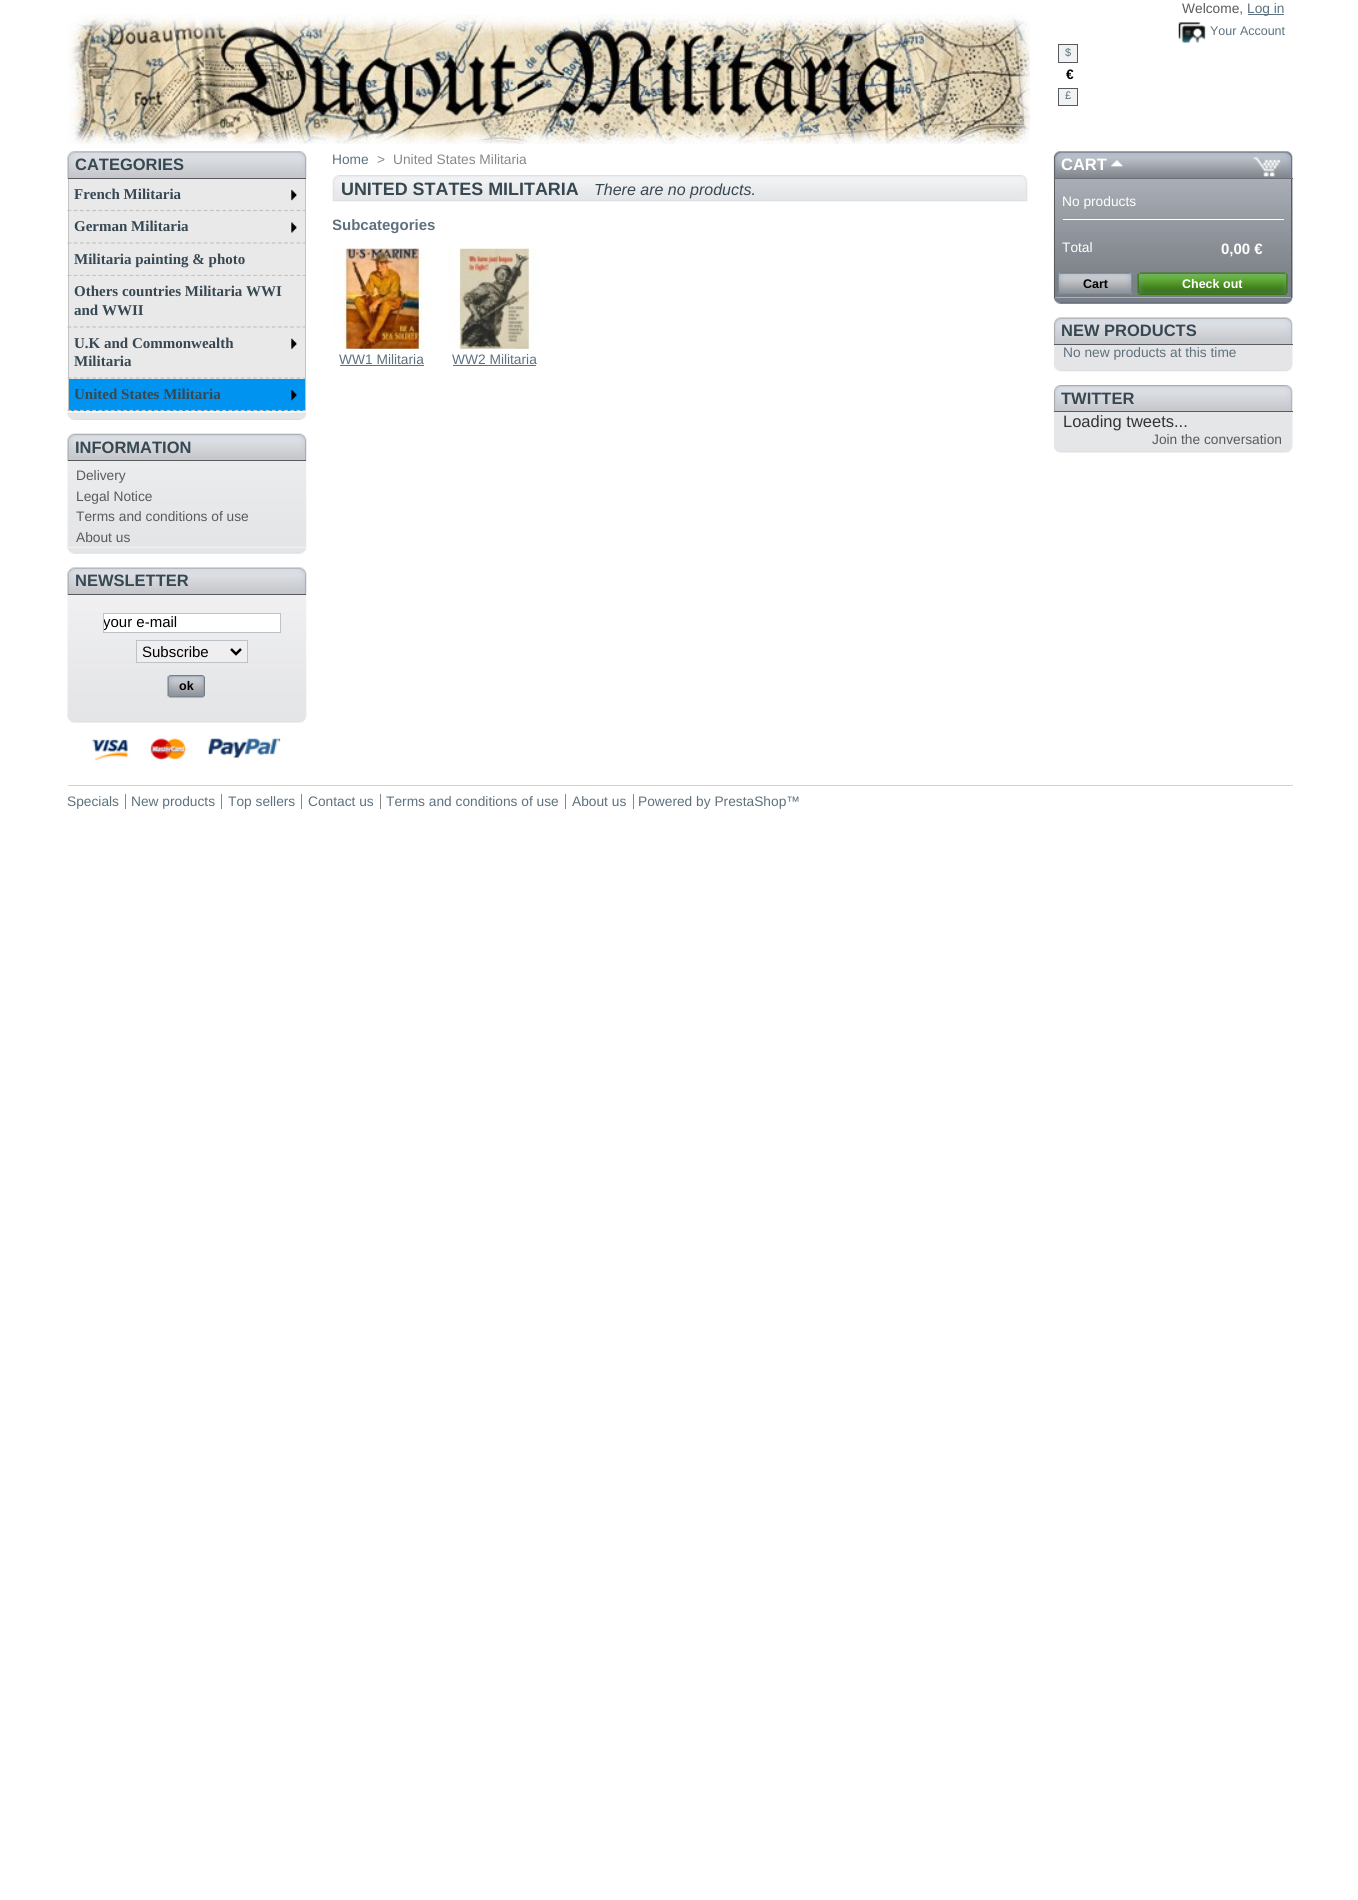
import math
import cairo

surface = cairo.ImageSurface(cairo.FORMAT_RGB24, 1358, 1900)
cr = cairo.Context(surface)
options = cairo.FontOptions()
options.set_hint_metrics(cairo.HINT_METRICS_OFF)
options.set_hint_style(cairo.HINT_STYLE_NONE)
cr.set_font_options(options)
cr.set_miter_limit(4)


def rgb(code):
    cr.set_source_rgb(*(v / 255 for v in bytes.fromhex(code[-6:])))


def image(path, x, y, w, h):
    cr.save()
    cr.set_source_surface(cairo.ImageSurface.create_from_png(path), x, y)
    cr.rectangle(x, y, w, h)
    cr.fill()
    cr.restore()


rgb("#ffffff")
cr.paint()
image("img/1.png", 68, 14, 962, 130)
rgb("#5d717e")
cr.rectangle(1248, 14, 36, 1)
cr.fill()
image("img/2.png", 1178, 22, 28, 21)
rgb("#f1f2f4")
cr.rectangle(1058.5, 44.5, 19, 18)
cr.fill_preserve()
rgb("#595a5e")
cr.set_line_width(1)
cr.stroke()
rgb("#f1f2f4")
cr.rectangle(1058.5, 88.5, 19, 17)
cr.fill_preserve()
rgb("#595a5e")
cr.stroke()
image("img/3.png", 67, 412, 240, 8)
image("img/4.png", 67, 151, 240, 28)
for x, y, w, h, color in [
    (68, 178, 238, 1, "#595a5e"),
    (69, 179, 236, 97, "#e9e9e9"),
    (305, 179, 1, 97, "#c3c3c3"),
]:
    rgb(color)
    cr.rectangle(x, y, w, h)
    cr.fill()
cr.new_path()
cr.move_to(67.5, 243)
cr.line_to(306, 243)
cr.set_line_width(1.2)
cr.set_dash([3.75, 2.44])
cr.stroke()
cr.rectangle(68, 211, 1, 33)
cr.fill()
cr.new_path()
cr.move_to(67.5, 210.5)
cr.line_to(306, 210.5)
cr.stroke()
cr.rectangle(68, 179, 1, 32)
cr.fill()
image("img/5.png", 291, 189, 6, 12)
image("img/6.png", 291, 222, 6, 11)
cr.new_path()
cr.move_to(67.5, 275.5)
cr.line_to(306, 275.5)
cr.stroke()
for x, y, w, h, color in [
    (68, 244, 1, 32, "#c3c3c3"),
    (69, 276, 236, 103, "#e9e9e9"),
    (305, 276, 1, 52, "#c3c3c3"),
]:
    rgb(color)
    cr.rectangle(x, y, w, h)
    cr.fill()
cr.new_path()
cr.move_to(67.5, 327)
cr.line_to(306, 327)
cr.stroke()
cr.rectangle(68, 276, 1, 52)
cr.fill()
cr.rectangle(305, 328, 1, 83)
cr.fill()
cr.new_path()
cr.move_to(67.5, 378)
cr.line_to(306, 378)
cr.stroke()
cr.rectangle(68, 328, 1, 51)
cr.fill()
image("img/7.png", 291, 338, 6, 11)
rgb("#0093f0")
cr.rectangle(69, 379, 236, 32)
cr.fill()
cr.new_path()
cr.move_to(67.5, 410.5)
cr.line_to(306, 410.5)
rgb("#c3c3c3")
cr.stroke()
cr.rectangle(68, 379, 1, 32)
cr.fill()
image("img/8.png", 291, 389, 6, 12)
image("img/9.png", 67, 546, 240, 8)
image("img/10.png", 67, 433, 240, 29)
rgb("#595a5e")
cr.rectangle(68, 460, 238, 1)
cr.fill()
rgb("#f1f2f4")
cr.rectangle(68, 461, 238, 87)
cr.fill()
image("img/11.png", 67, 461, 240, 86)
image("img/12.png", 67, 715, 240, 8)
image("img/13.png", 67, 567, 240, 28)
rgb("#595a5e")
cr.rectangle(68, 594, 238, 1)
cr.fill()
image("img/14.png", 67, 595, 240, 121)
rgb("#ffffff")
cr.rectangle(103.5, 613.5, 177, 19)
cr.fill_preserve()
rgb("#bdc2c9")
cr.set_line_width(1)
cr.set_dash([])
cr.stroke()
rgb("#efefef")
cr.rectangle(136.5, 640.5, 111, 22)
cr.fill_preserve()
rgb("#bdc2c9")
cr.stroke()
cr.new_path()
cr.move_to(231, 649)
cr.line_to(236, 654)
cr.line_to(241, 649)
rgb("#000000")
cr.set_line_width(2.5)
cr.stroke()
rgb("#efefef")
cr.rectangle(168, 675, 37, 23)
cr.fill()
image("img/15.png", 167, 675, 38, 23)
image("img/16.png", 91, 738, 38, 24)
image("img/17.png", 150, 738, 37, 23)
image("img/18.png", 208, 738, 73, 20)
image("img/19.png", 332, 175, 696, 27)
image("img/20.png", 333, 248, 100, 101)
rgb("#5d717e")
cr.rectangle(340, 365, 84, 1)
cr.fill()
image("img/21.png", 448, 248, 87, 101)
cr.rectangle(453, 365, 83, 1)
cr.fill()
image("img/22.png", 1053, 296, 240, 8)
image("img/23.png", 1053, 151, 240, 28)
rgb("#595a5e")
cr.rectangle(1054, 178, 239, 1)
cr.fill()
image("img/24.png", 1111, 160, 12, 7)
rgb("#bdc2c9")
cr.rectangle(1055, 179, 238, 119)
cr.fill()
image("img/25.png", 1053, 178, 240, 120)
for x, y, w, h, color in [
    (1291, 179, 1, 119, "#595a5e"),
    (1054, 179, 1, 119, "#595a5e"),
    (1063, 219, 221, 1, "#ffffff"),
]:
    rgb(color)
    cr.rectangle(x, y, w, h)
    cr.fill()
image("img/26.png", 1057, 272, 76, 23)
image("img/27.png", 1137, 272, 151, 23)
image("img/28.png", 1054, 365, 239, 7)
image("img/29.png", 1053, 317, 240, 28)
for x, y, w, h, color in [
    (1054, 344, 239, 1, "#595a5e"),
    (1292, 345, 1, 20, "#f1f2f4"),
    (1054, 345, 238, 20, "#e5e5e7"),
]:
    rgb(color)
    cr.rectangle(x, y, w, h)
    cr.fill()
image("img/30.png", 1054, 446, 239, 7)
image("img/31.png", 1053, 385, 240, 28)
for x, y, w, h, color in [
    (1054, 411, 239, 1, "#595a5e"),
    (1292, 413, 1, 33, "#f1f2f4"),
    (1054, 412, 238, 34, "#e5e6e8"),
    (68, 785, 1225, 1, "#d0d3d8"),
    (125, 794, 1, 15, "#888888"),
    (221, 794, 1, 15, "#888888"),
    (301, 794, 1, 15, "#888888"),
    (380, 794, 1, 15, "#888888"),
    (565, 794, 1, 15, "#888888"),
    (633, 794, 1, 15, "#888888"),
]:
    rgb(color)
    cr.rectangle(x, y, w, h)
    cr.fill()
cr.select_font_face("Liberation Sans")
cr.set_font_size(13.75)
rgb("#595a5e")
cr.move_to(1182, 13)
cr.show_text("Welcome,")
rgb("#5d717e")
cr.move_to(1247, 13)
cr.show_text("Log in")
cr.set_font_size(12.5)
cr.move_to(1210, 35)
cr.show_text("Your Account")
cr.set_font_size(11)
cr.move_to(1065, 56)
cr.show_text("$")
cr.select_font_face("Liberation Sans", cairo.FONT_SLANT_NORMAL, cairo.FONT_WEIGHT_BOLD)
cr.set_font_size(13.75)
rgb("#000000")
cr.move_to(1066, 79)
cr.show_text("€")
cr.select_font_face("Liberation Sans")
cr.set_font_size(11)
rgb("#5d717e")
cr.move_to(1065, 99)
cr.show_text("£")
cr.select_font_face("Liberation Sans", cairo.FONT_SLANT_NORMAL, cairo.FONT_WEIGHT_BOLD)
cr.set_font_size(16.5)
rgb("#374853")
cr.move_to(75, 170)
cr.show_text("CATEGORIES")
cr.select_font_face("Liberation Serif", cairo.FONT_SLANT_NORMAL, cairo.FONT_WEIGHT_BOLD)
cr.set_font_size(15)
for x, y, s in [
    (74, 199, "French Militaria"),
    (74, 231, "German Militaria"),
    (74, 264, "Militaria painting & photo"),
    (74, 296, "Others countries Militaria WWI"),
    (74, 315, "and WWII"),
    (74, 348, "U.K and Commonwealth"),
    (74, 366, "Militaria"),
    (74, 399, "United States Militaria"),
]:
    cr.move_to(x, y)
    cr.show_text(s)
cr.select_font_face("Liberation Sans", cairo.FONT_SLANT_NORMAL, cairo.FONT_WEIGHT_BOLD)
cr.set_font_size(16.5)
cr.move_to(75, 453)
cr.show_text("INFORMATION")
cr.select_font_face("Liberation Sans")
cr.set_font_size(13.75)
rgb("#595a5e")
for x, y, s in [
    (76, 480, "Delivery"),
    (76, 501, "Legal Notice"),
    (76, 521, "Terms and conditions of use"),
    (76, 542, "About us"),
]:
    cr.move_to(x, y)
    cr.show_text(s)
cr.select_font_face("Liberation Sans", cairo.FONT_SLANT_NORMAL, cairo.FONT_WEIGHT_BOLD)
cr.set_font_size(16.5)
rgb("#374853")
cr.move_to(75, 586)
cr.show_text("NEWSLETTER")
cr.save()
cr.rectangle(104, 614, 176, 17)
cr.clip()
cr.select_font_face("Liberation Sans")
cr.set_font_size(15)
rgb("#000000")
cr.move_to(103, 627)
cr.show_text("your e-mail")
cr.restore()
cr.select_font_face("Liberation Sans")
cr.set_font_size(15)
rgb("#000000")
cr.move_to(142, 657)
cr.show_text("Subscribe")
cr.select_font_face("Liberation Sans", cairo.FONT_SLANT_NORMAL, cairo.FONT_WEIGHT_BOLD)
cr.set_font_size(12.5)
cr.move_to(179, 690)
cr.show_text("ok")
cr.select_font_face("Liberation Sans")
cr.set_font_size(13.75)
rgb("#5d717e")
cr.move_to(332, 164)
cr.show_text("Home")
rgb("#888888")
cr.move_to(377, 164)
cr.show_text(">")
cr.move_to(393, 164)
cr.show_text("United States Militaria")
cr.select_font_face("Liberation Sans", cairo.FONT_SLANT_NORMAL, cairo.FONT_WEIGHT_BOLD)
cr.set_font_size(17.9)
rgb("#374853")
cr.move_to(341, 195)
cr.show_text("UNITED STATES MILITARIA")
cr.select_font_face("Liberation Sans", cairo.FONT_SLANT_ITALIC)
cr.set_font_size(16)
cr.move_to(594, 195)
cr.show_text("There are no products.")
cr.save()
cr.rectangle(333, 151, 695, 215)
cr.clip()
cr.select_font_face("Liberation Sans", cairo.FONT_SLANT_NORMAL, cairo.FONT_WEIGHT_BOLD)
cr.set_font_size(15)
rgb("#5d717e")
cr.move_to(332, 230)
cr.show_text("Subcategories")
cr.restore()
cr.select_font_face("Liberation Sans")
cr.set_font_size(13.75)
rgb("#5d717e")
cr.move_to(339, 364)
cr.show_text("WW1 Militaria")
cr.move_to(452, 364)
cr.show_text("WW2 Militaria")
cr.select_font_face("Liberation Sans", cairo.FONT_SLANT_NORMAL, cairo.FONT_WEIGHT_BOLD)
cr.set_font_size(16.5)
rgb("#ffffff")
cr.move_to(1061, 170)
cr.show_text("CART")
cr.select_font_face("Liberation Sans")
cr.set_font_size(13.75)
cr.move_to(1062, 206)
cr.show_text("No products")
cr.move_to(1062, 252)
cr.show_text("Total")
cr.select_font_face("Liberation Sans", cairo.FONT_SLANT_NORMAL, cairo.FONT_WEIGHT_BOLD)
cr.set_font_size(15)
cr.move_to(1221, 254)
cr.show_text("0,00 €")
cr.set_font_size(12.5)
rgb("#000000")
cr.move_to(1083, 288)
cr.show_text("Cart")
rgb("#ffffff")
cr.move_to(1182, 288)
cr.show_text("Check out")
cr.set_font_size(16.5)
rgb("#374853")
cr.move_to(1061, 336)
cr.show_text("NEW PRODUCTS")
cr.select_font_face("Liberation Sans")
cr.set_font_size(13.75)
rgb("#5d717e")
cr.move_to(1063, 357)
cr.show_text("No new products at this time")
cr.select_font_face("Liberation Sans", cairo.FONT_SLANT_NORMAL, cairo.FONT_WEIGHT_BOLD)
cr.set_font_size(16.5)
rgb("#374853")
cr.move_to(1061, 404)
cr.show_text("TWITTER")
cr.select_font_face("Liberation Sans")
rgb("#333333")
cr.move_to(1063, 427)
cr.show_text("Loading tweets...")
cr.set_font_size(13.75)
rgb("#595a5e")
cr.move_to(1152, 444)
cr.show_text("Join the conversation")
rgb("#5d717e")
for x, y, s in [
    (67, 806, "Specials"),
    (131, 806, "New products"),
    (228, 806, "Top sellers"),
    (308, 806, "Contact us"),
    (386, 806, "Terms and conditions of use"),
    (572, 806, "About us"),
    (638, 806, "Powered by PrestaShop™"),
]:
    cr.move_to(x, y)
    cr.show_text(s)
surface.write_to_png("page.png")
